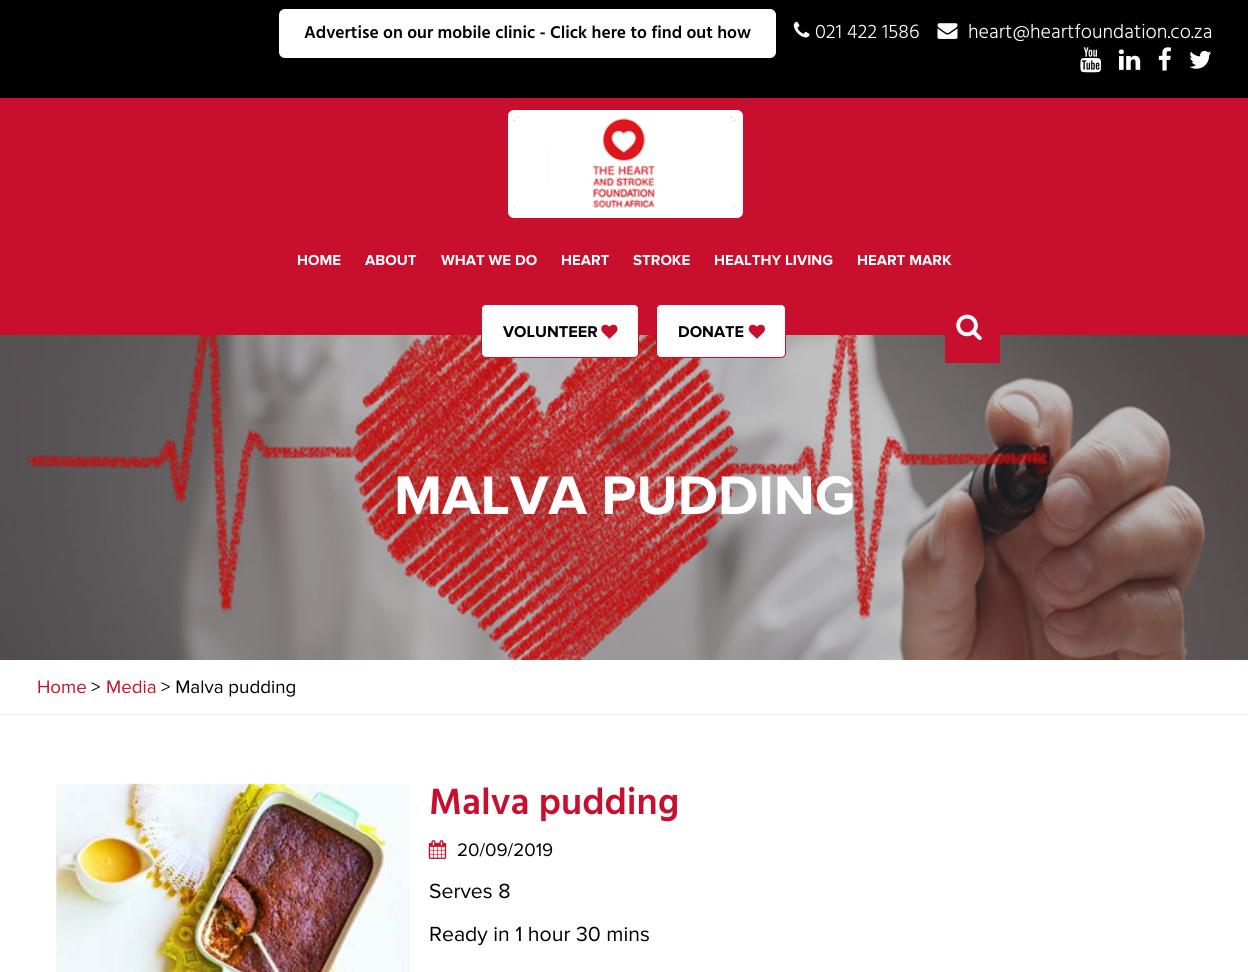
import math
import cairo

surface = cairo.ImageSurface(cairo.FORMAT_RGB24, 1248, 972)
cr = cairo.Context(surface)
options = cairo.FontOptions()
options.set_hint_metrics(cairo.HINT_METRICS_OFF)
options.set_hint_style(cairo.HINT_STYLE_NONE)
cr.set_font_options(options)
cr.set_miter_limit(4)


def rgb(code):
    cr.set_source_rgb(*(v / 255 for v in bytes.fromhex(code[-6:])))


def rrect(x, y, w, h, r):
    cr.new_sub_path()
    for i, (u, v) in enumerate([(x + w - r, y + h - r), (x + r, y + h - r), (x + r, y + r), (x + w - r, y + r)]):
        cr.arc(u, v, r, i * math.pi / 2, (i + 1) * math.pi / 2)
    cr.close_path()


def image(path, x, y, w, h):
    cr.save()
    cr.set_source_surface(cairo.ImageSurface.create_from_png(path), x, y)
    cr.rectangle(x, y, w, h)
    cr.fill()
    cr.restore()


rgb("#ffffff")
cr.paint()
rgb("#000000")
cr.rectangle(0, 0, 1248, 98)
cr.fill()
rgb("#ffffff")
rrect(279, 9, 497, 49, 6)
cr.fill()
image("img/1.png", 793, 21, 17, 17)
image("img/2.png", 937, 23, 21, 16)
image("img/3.png", 1080, 47, 22, 26)
image("img/4.png", 1118, 49, 23, 21)
image("img/5.png", 1158, 47, 13, 24)
image("img/6.png", 1189, 50, 23, 19)
rgb("#c8102e")
cr.rectangle(0, 98, 1248, 237)
cr.fill()
rgb("#ffffff")
rrect(508, 110, 235, 108, 6)
cr.fill()
image("img/7.png", 513, 116, 222, 93)
image("img/11.png", 0, 335, 1248, 325)
rrect(481.5, 304.5, 157, 53, 4.5)
cr.fill_preserve()
rgb("#c8102e")
cr.set_line_width(1)
cr.stroke()
image("img/8.png", 601, 324, 17, 15)
rgb("#ffffff")
rrect(656.5, 304.5, 129, 53, 4.5)
cr.fill_preserve()
rgb("#c8102e")
cr.stroke()
image("img/9.png", 748, 324, 17, 15)
cr.rectangle(945, 335, 55, 28)
cr.fill()
image("img/10.png", 956, 314, 26, 27)
rgb("#ececec")
cr.rectangle(0, 714, 1248, 1)
cr.fill()
image("img/12.png", 56, 783, 354, 189)
image("img/13.png", 428, 840, 19, 19)
cr.select_font_face("Hind SemiBold")
cr.set_font_size(17.5)
rgb("#000000")
cr.move_to(304, 38)
cr.show_text("Advertise on our mobile clinic - Click here to find out how")
cr.select_font_face("Hind Light")
cr.set_font_size(20)
rgb("#ffffff")
cr.move_to(815, 38)
cr.show_text("021 422 1586")
cr.move_to(968, 38)
cr.show_text("heart@heartfoundation.co.za")
cr.select_font_face("Proxima Nova", cairo.FONT_SLANT_NORMAL, cairo.FONT_WEIGHT_BOLD)
cr.set_font_size(15)
for x, y, s in [
    (297, 265, "HOME"),
    (365, 265, "ABOUT"),
    (441, 265, "WHAT WE DO"),
    (561, 265, "HEART"),
    (633, 265, "STROKE"),
    (714, 265, "HEALTHY LIVING"),
    (857, 265, "HEART MARK"),
]:
    cr.move_to(x, y)
    cr.show_text(s)
cr.set_font_size(16.25)
rgb("#000000")
cr.move_to(503, 337)
cr.show_text("VOLUNTEER")
cr.move_to(678, 337)
cr.show_text("DONATE")
cr.set_font_size(56.25)
rgb("#ffffff")
cr.move_to(394, 514)
cr.show_text("MALVA PUDDING")
cr.select_font_face("Proxima Nova")
cr.set_font_size(18.75)
rgb("#c8102e")
cr.move_to(37, 693)
cr.show_text("Home")
rgb("#000000")
cr.move_to(91, 693)
cr.show_text(">")
rgb("#c8102e")
cr.move_to(106, 693)
cr.show_text("Media")
rgb("#000000")
cr.move_to(161, 693)
cr.show_text("> Malva pudding")
cr.select_font_face("Hind SemiBold")
cr.set_font_size(37.5)
rgb("#c8102e")
cr.move_to(429, 814)
cr.show_text("Malva pudding")
cr.select_font_face("Proxima Nova")
cr.set_font_size(18.75)
rgb("#000000")
cr.move_to(457, 856)
cr.show_text("20/09/2019")
cr.set_font_size(21.25)
cr.move_to(429, 898)
cr.show_text("Serves 8")
cr.move_to(429, 941)
cr.show_text("Ready in 1 hour 30 mins")
surface.write_to_png("page.png")
